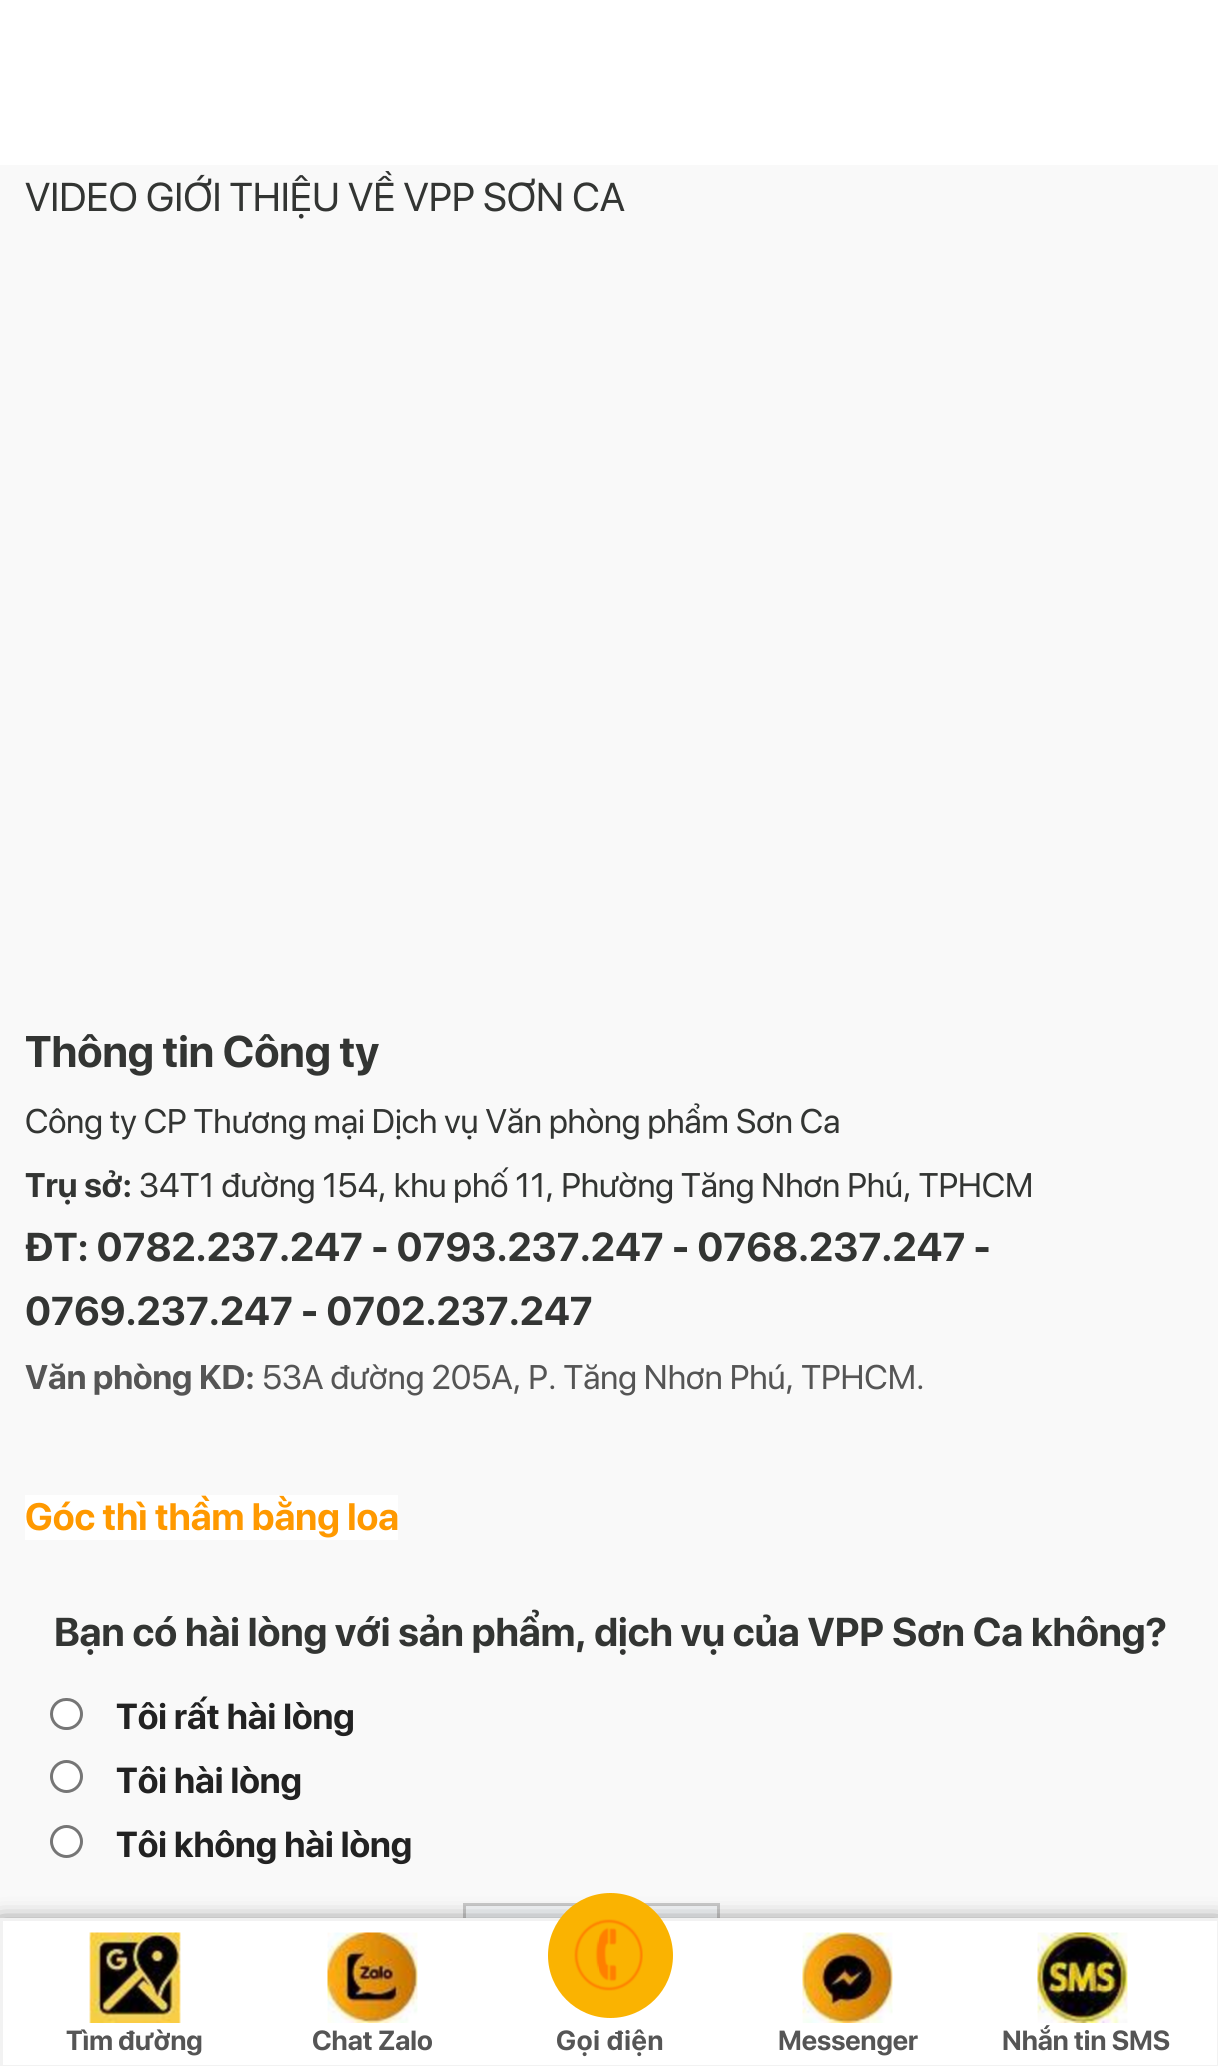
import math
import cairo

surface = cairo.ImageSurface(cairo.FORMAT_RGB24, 1218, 2066)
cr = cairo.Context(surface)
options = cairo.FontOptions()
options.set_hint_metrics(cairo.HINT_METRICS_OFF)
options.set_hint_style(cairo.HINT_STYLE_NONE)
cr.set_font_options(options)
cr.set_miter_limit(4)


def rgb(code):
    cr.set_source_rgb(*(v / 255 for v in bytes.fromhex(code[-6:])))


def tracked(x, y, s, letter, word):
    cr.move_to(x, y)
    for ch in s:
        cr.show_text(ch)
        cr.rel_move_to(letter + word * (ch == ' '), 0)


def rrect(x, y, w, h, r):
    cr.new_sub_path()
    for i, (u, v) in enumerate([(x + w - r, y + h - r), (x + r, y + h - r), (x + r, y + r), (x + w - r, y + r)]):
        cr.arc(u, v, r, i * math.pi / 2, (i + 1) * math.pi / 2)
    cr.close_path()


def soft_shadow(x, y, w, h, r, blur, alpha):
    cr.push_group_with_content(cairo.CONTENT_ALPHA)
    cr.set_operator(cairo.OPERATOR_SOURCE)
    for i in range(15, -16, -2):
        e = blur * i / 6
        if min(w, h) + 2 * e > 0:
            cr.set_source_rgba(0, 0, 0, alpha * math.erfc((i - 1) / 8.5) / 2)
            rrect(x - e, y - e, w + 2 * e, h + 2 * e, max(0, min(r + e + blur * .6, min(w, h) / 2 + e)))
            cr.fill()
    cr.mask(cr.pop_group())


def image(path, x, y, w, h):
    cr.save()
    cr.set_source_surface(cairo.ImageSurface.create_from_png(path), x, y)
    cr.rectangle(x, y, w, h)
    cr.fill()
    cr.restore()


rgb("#ffffff")
cr.paint()
rgb("#f9f9f9")
cr.rectangle(0, 165, 1218, 1753)
cr.fill()
rgb("#ffffff")
cr.rectangle(25, 1495, 373, 45)
cr.fill()
rrect(51.5, 1699.5, 30, 29, 14.5)
cr.fill_preserve()
rgb("#767676")
cr.set_line_width(3)
cr.stroke()
rgb("#ffffff")
cr.arc(66.5, 1776.5, 15, 0, 2 * math.pi)
cr.fill_preserve()
rgb("#767676")
cr.stroke()
rgb("#ffffff")
cr.arc(66.5, 1841.5, 15, 0, 2 * math.pi)
cr.fill_preserve()
rgb("#767676")
cr.stroke()
rgb("#f3f6f8")
cr.rectangle(466, 1906, 251, 12)
cr.fill()
cr.rectangle(464.5, 1904.5, 254, 94)
rgb("#c8c8c8")
cr.stroke()
rgb("#000000")
soft_shadow(0, 1928, 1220, 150, 0, 12.5, 1)
rgb("#ffffff")
cr.rectangle(1.5, 1919.5, 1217, 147)
cr.fill_preserve()
rgb("#f2f2f2")
cr.stroke()
image("img/1.png", 89, 1932, 92, 91)
image("img/2.png", 327, 1932, 91, 91)
rgb("#fab301")
cr.arc(610.5, 1955.5, 62.5, 0, 2 * math.pi)
cr.fill()
image("img/3.png", 574, 1919, 69, 72)
image("img/4.png", 802, 1932, 91, 91)
image("img/5.png", 1037, 1932, 91, 91)
cr.select_font_face("SF Pro Display")
cr.set_font_size(40)
rgb("#333533")
cr.move_to(25, 211)
cr.show_text("VIDEO GIỚI THIỆU VỀ VPP SƠN CA")
cr.select_font_face("SF Pro Display", cairo.FONT_SLANT_NORMAL, cairo.FONT_WEIGHT_BOLD)
cr.set_font_size(44)
cr.move_to(25, 1067)
cr.show_text("Thông tin Công ty")
cr.select_font_face("SF Pro Display")
cr.set_font_size(34)
cr.move_to(25, 1133)
cr.show_text("Công ty CP Thương mại Dịch vụ Văn phòng phẩm")
cr.move_to(736, 1133)
cr.show_text("Sơn Ca")
cr.select_font_face("SF Pro Display", cairo.FONT_SLANT_NORMAL, cairo.FONT_WEIGHT_BOLD)
cr.move_to(25, 1197)
cr.show_text("Trụ sở:")
cr.select_font_face("SF Pro Display")
cr.move_to(139, 1197)
cr.show_text("34T1 đường 154, khu phố 11, Phường Tăng Nhơn Phú, TPHCM")
cr.select_font_face("SF Pro Display", cairo.FONT_SLANT_NORMAL, cairo.FONT_WEIGHT_BOLD)
cr.set_font_size(40)
cr.move_to(25, 1261)
cr.show_text("ĐT: 0782.237.247 - 0793.237.247 - 0768.237.247 -")
cr.move_to(25, 1325)
cr.show_text("0769.237.247 - 0702.237.247")
cr.set_font_size(34)
rgb("#555555")
cr.move_to(25, 1389)
cr.show_text("Văn phòng KD:")
cr.select_font_face("SF Pro Display")
cr.move_to(262, 1389)
cr.show_text("53A đường 205A, P. Tăng Nhơn Phú, TPHCM.")
cr.select_font_face("SF Pro Display", cairo.FONT_SLANT_NORMAL, cairo.FONT_WEIGHT_BOLD)
cr.set_font_size(38)
rgb("#ff9900")
cr.move_to(25, 1530)
cr.show_text("Góc thì thầm bằng loa")
cr.set_font_size(40)
rgb("#333533")
cr.move_to(54, 1646)
cr.show_text("Bạn có hài lòng với sản phẩm, dịch vụ của VPP Sơn Ca không?")
cr.set_font_size(36)
rgb("#222222")
for x, y, s in [
    (116, 1729, "Tôi rất hài lòng"),
    (116, 1793, "Tôi hài lòng"),
    (116, 1857, "Tôi không hài lòng"),
]:
    cr.move_to(x, y)
    cr.show_text(s)
cr.set_font_size(27.5)
rgb("#555555")
cr.move_to(66, 2050)
cr.show_text("Tìm đường")
cr.move_to(312, 2050)
cr.show_text("Chat Zalo")
tracked(556, 2050, "Gọi điện", 0.75, 0)
cr.move_to(778, 2050)
cr.show_text("Messenger")
cr.move_to(1002, 2050)
cr.show_text("Nhắn tin SMS")
surface.write_to_png("page.png")
